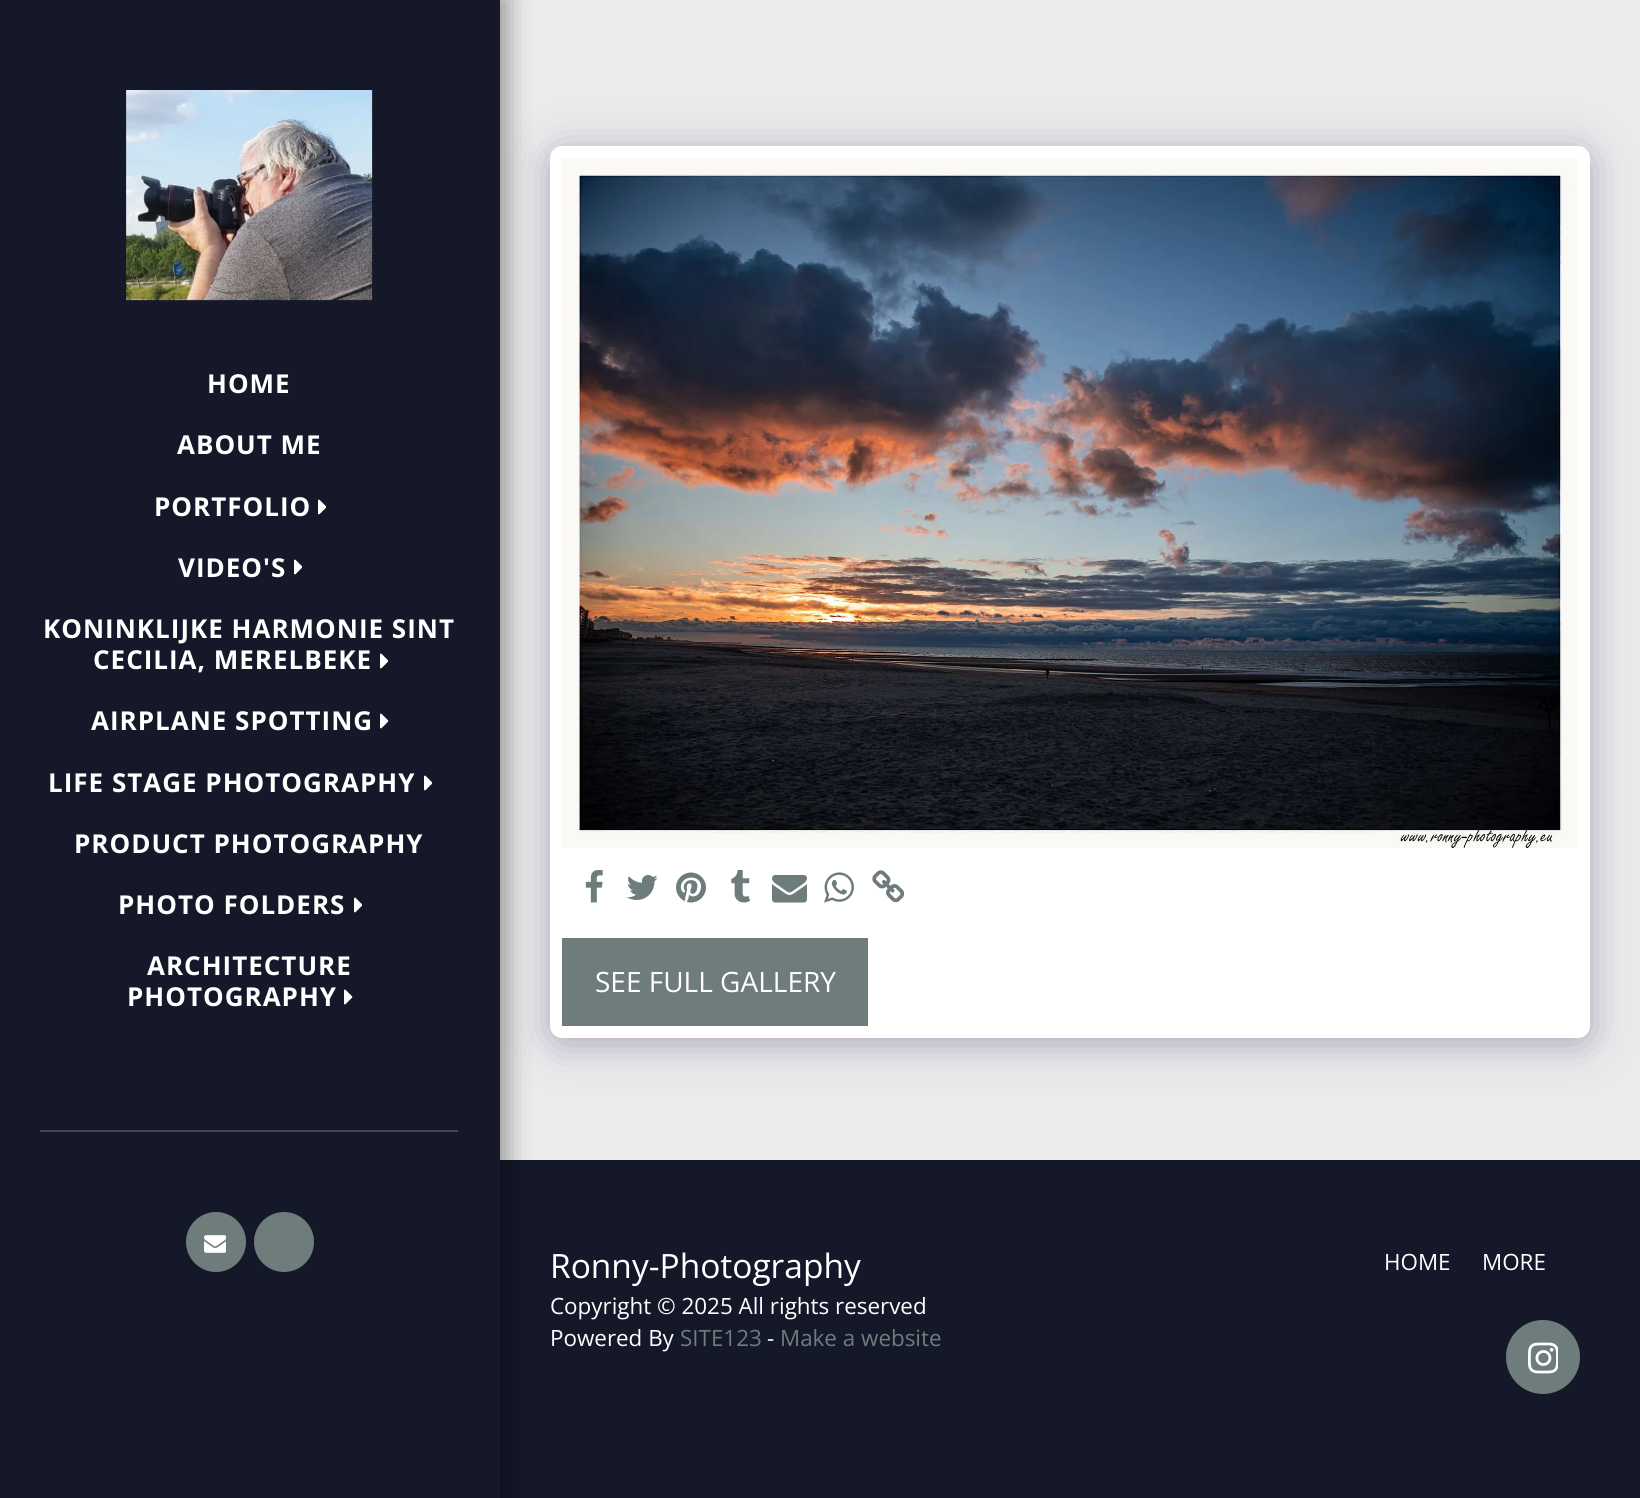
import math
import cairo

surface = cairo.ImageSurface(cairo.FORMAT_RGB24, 1640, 1498)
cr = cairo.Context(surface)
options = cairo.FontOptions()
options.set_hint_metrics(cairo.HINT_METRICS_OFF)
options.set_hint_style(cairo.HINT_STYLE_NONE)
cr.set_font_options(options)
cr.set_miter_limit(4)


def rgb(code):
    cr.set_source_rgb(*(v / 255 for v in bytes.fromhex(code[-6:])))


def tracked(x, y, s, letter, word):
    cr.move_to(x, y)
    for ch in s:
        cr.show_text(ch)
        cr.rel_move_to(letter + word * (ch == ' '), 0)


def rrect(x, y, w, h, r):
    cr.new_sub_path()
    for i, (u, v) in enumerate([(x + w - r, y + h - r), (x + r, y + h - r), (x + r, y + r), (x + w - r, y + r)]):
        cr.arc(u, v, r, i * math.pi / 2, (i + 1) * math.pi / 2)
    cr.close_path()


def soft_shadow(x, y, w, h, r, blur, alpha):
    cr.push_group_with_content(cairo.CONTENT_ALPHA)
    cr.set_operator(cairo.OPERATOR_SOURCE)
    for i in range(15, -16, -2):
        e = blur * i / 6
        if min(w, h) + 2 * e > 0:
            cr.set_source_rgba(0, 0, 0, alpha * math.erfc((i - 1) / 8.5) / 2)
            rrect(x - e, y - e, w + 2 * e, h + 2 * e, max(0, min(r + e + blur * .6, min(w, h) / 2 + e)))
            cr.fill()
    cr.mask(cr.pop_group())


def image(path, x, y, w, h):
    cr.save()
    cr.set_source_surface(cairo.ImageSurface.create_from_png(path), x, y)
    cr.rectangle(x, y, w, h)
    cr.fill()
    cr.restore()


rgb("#ebebeb")
cr.paint()
rgb("#141829")
cr.rectangle(500, 1160, 1140, 338)
cr.fill()
rgb("#000000")
soft_shadow(0, -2, 508, 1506, 0, 12, 0.35)
rgb("#4d3f7a")
soft_shadow(550, 152, 1040, 892, 12, 20, 0.4)
rgb("#141829")
cr.rectangle(0, 0, 500, 1498)
cr.fill()
image("img/1.png", 126, 90, 247, 211)
image("img/2.png", 318, 499, 8, 16)
image("img/2.png", 294, 559, 8, 16)
image("img/2.png", 380, 653, 8, 16)
image("img/3.png", 380, 713, 9, 16)
image("img/2.png", 424, 775, 8, 16)
image("img/2.png", 354, 897, 8, 16)
image("img/3.png", 344, 989, 9, 16)
rgb("#434654")
cr.rectangle(40, 1130, 418, 2)
cr.fill()
rgb("#6e7c7c")
cr.arc(216, 1242, 30, 0, 2 * math.pi)
cr.fill()
image("img/4.png", 204, 1235, 22, 18)
cr.arc(284, 1242, 30, 0, 2 * math.pi)
cr.fill()
rgb("#ffffff")
rrect(550, 146, 1040, 892, 12)
cr.fill()
image("img/5.png", 562, 158, 1016, 690)
image("img/6.png", 585, 870, 18, 33)
image("img/7.png", 627, 875, 31, 25)
image("img/8.png", 676, 872, 30, 31)
image("img/9.png", 731, 870, 19, 33)
image("img/10.png", 772, 875, 35, 28)
image("img/11.png", 824, 872, 30, 31)
image("img/12.png", 872, 870, 32, 33)
rgb("#6e7c7c")
cr.rectangle(562, 938, 306, 88)
cr.fill()
cr.arc(1543, 1357, 36, 0, 2 * math.pi)
cr.fill_preserve()
cr.stroke()
image("img/13.png", 1528, 1342, 30, 32)
cr.select_font_face("Open Sans", cairo.FONT_SLANT_NORMAL, cairo.FONT_WEIGHT_BOLD)
cr.set_font_size(26)
rgb("#ffffff")
for x, y, s in [
    (207, 393, "HOME"),
    (177, 454, "ABOUT ME"),
    (154, 516, "PORTFOLIO"),
    (178, 577, "VIDEO'S"),
    (43, 638, "KONINKLIJKE HARMONIE SINT"),
    (93, 669, "CECILIA, MERELBEKE"),
    (91, 730, "AIRPLANE SPOTTING"),
    (48, 792, "LIFE STAGE PHOTOGRAPHY"),
    (74, 853, "PRODUCT PHOTOGRAPHY"),
    (118, 914, "PHOTO FOLDERS"),
    (147, 975, "ARCHITECTURE"),
    (127, 1006, "PHOTOGRAPHY"),
]:
    tracked(x, y, s, 1, 0)
cr.select_font_face("Open Sans")
cr.set_font_size(28)
cr.move_to(595, 992)
cr.show_text("SEE FULL GALLERY")
cr.set_font_size(33.5)
cr.move_to(550, 1278)
cr.show_text("Ronny-Photography")
cr.set_font_size(22.4)
cr.move_to(550, 1314)
cr.show_text("Copyright © 2025 All rights reserved")
cr.move_to(550, 1346)
cr.show_text("Powered By")
rgb("#6e7c7c")
cr.move_to(680, 1346)
cr.show_text("SITE123")
rgb("#ffffff")
cr.move_to(767, 1346)
cr.show_text("-")
rgb("#6e7c7c")
cr.move_to(780, 1346)
cr.show_text("Make a website")
rgb("#ffffff")
cr.move_to(1384, 1270)
cr.show_text("HOME")
cr.move_to(1482, 1270)
cr.show_text("MORE")
surface.write_to_png("page.png")
